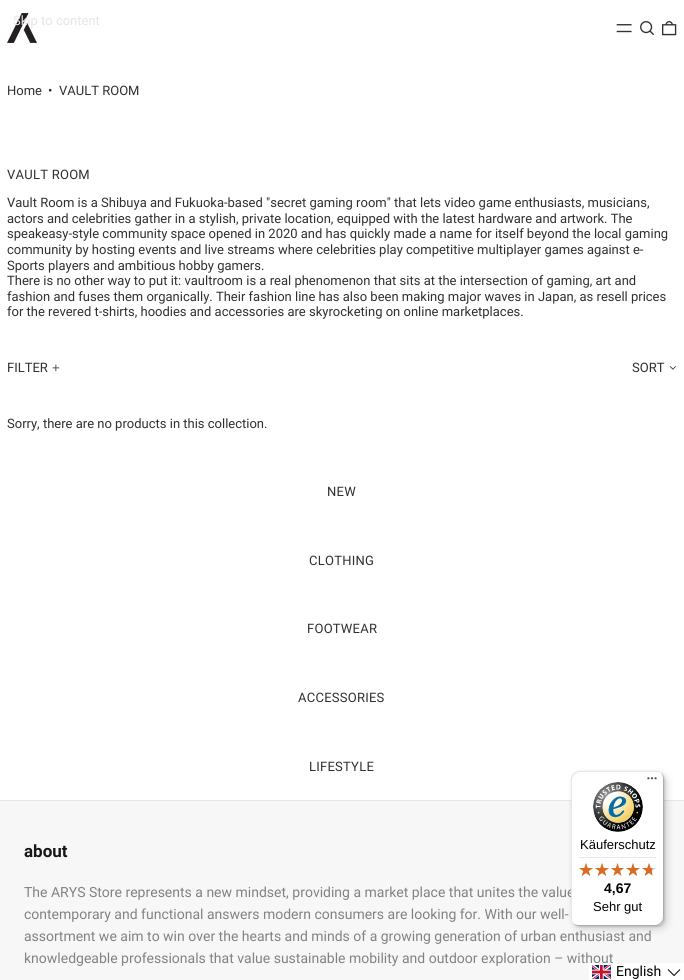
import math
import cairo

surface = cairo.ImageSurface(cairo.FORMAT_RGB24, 684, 980)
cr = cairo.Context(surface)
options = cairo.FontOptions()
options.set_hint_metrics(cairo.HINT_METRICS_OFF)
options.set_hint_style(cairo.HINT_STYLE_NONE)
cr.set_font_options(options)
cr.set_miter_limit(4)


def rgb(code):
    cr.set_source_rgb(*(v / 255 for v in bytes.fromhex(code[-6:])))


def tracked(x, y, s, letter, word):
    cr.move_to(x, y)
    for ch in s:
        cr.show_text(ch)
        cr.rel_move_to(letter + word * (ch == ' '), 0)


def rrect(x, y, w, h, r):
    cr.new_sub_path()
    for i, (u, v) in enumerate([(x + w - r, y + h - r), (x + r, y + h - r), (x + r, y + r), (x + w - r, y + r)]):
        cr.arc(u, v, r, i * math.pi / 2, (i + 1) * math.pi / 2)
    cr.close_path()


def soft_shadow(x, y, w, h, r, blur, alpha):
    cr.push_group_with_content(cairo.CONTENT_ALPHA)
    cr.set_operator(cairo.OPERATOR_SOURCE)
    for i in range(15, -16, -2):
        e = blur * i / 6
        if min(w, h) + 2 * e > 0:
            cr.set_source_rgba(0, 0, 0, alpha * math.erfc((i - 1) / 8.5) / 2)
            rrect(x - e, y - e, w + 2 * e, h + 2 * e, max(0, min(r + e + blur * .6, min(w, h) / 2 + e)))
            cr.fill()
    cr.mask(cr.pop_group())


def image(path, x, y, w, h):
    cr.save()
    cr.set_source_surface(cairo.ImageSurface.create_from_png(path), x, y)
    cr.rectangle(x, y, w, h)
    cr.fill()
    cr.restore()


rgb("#ffffff")
cr.paint()
image("img/1.png", 7, 13, 30, 30)
image("img/2.png", 616, 24, 16, 9)
image("img/3.png", 640, 21, 15, 15)
image("img/4.png", 662, 21, 15, 15)
image("img/5.png", 52, 364, 8, 8)
image("img/6.png", 669, 366, 7, 4)
rgb("#f7f7f8")
cr.rectangle(0, 801, 684, 179)
cr.fill()
rgb("#e5e7eb")
cr.rectangle(0, 800, 684, 1)
cr.fill()
rgb("#000000")
soft_shadow(574, 774, 93, 155, 8, 4, 0.15)
soft_shadow(572, 772, 93, 155, 8, 1, 0.15)
cr.select_font_face("Roboto")
cr.set_font_size(13)
rgb("#e6e5e5")
cr.move_to(13, 25)
cr.show_text("Skip to content")
rgb("#303030")
for x, y, s in [
    (7, 95, "Home"),
    (48, 95, "•"),
    (59, 95, "VAULT ROOM"),
]:
    cr.move_to(x, y)
    cr.show_text(s)
tracked(7, 179, "VAULT ROOM", 0.25, 0)
for x, y, s in [
    (7, 207, "Vault Room is a Shibuya and Fukuoka-based \"secret gaming room\" that lets video game enthusiasts, musicians,"),
    (7, 223, "actors and celebrities gather in a stylish, private location, equipped with the latest hardware and artwork. The"),
    (7, 238, "speakeasy-style community space opened in 2020 and has quickly made a name for itself beyond the local gaming"),
    (7, 254, "community by hosting events and live streams where celebrities play competitive multiplayer games against e-"),
    (7, 270, "Sports players and ambitious hobby gamers."),
    (7, 285, "There is no other way to put it: vaultroom is a real phenomenon that sits at the intersection of gaming, art and"),
    (7, 301, "fashion and fuses them organically. Their fashion line has also been making major waves in Japan, as resell prices"),
    (7, 316, "for the revered t-shirts, hoodies and accessories are skyrocketing on online marketplaces."),
    (7, 372, "FILTER"),
    (632, 372, "SORT"),
    (7, 428, "Sorry, there are no products in this collection."),
]:
    cr.move_to(x, y)
    cr.show_text(s)
for x, y, s in [
    (327, 496, "NEW"),
    (309, 565, "CLOTHING"),
    (307, 633, "FOOTWEAR"),
    (298, 702, "ACCESSORIES"),
    (309, 771, "LIFESTYLE"),
]:
    tracked(x, y, s, 0.25, 0)
cr.select_font_face("Roboto", cairo.FONT_SLANT_NORMAL, cairo.FONT_WEIGHT_BOLD)
cr.set_font_size(17)
rgb("#171717")
cr.move_to(24, 857)
cr.show_text("about")
cr.select_font_face("Roboto")
cr.set_font_size(14)
rgb("#808284")
for x, y, s in [
    (24, 897, "The ARYS Store represents a new mindset, providing a market place that unites the value"),
    (24, 919, "contemporary and functional answers modern consumers are looking for. With our well-"),
    (24, 941, "assortment we aim to win over the hearts and minds of a growing generation of urban enthusiast and"),
    (24, 963, "knowledgeable professionals that value sustainable mobility and outdoor exploration – without"),
]:
    cr.move_to(x, y)
    cr.show_text(s)
rgb("#ffffff")
rrect(571, 771, 93, 155, 8)
cr.fill()
cr.set_source_rgba(0, 0, 0, 0.1)
cr.new_path()
cr.move_to(580, 772)
cr.line_to(657, 772)
cr.curve_to(659, 772, 661, 773, 663, 775)
cr.curve_to(661, 773, 659, 771, 656, 771)
cr.line_to(579, 771)
cr.curve_to(575, 771, 571, 775, 571, 779)
cr.line_to(571, 918)
cr.curve_to(571, 921, 573, 923, 575, 925)
cr.curve_to(573, 923, 572, 921, 572, 919)
cr.line_to(572, 780)
cr.curve_to(572, 776, 576, 772, 580, 772)
cr.close_path()
cr.fill()
cr.set_source_rgba(0, 0, 0, 0.2)
cr.new_path()
cr.move_to(572, 922)
cr.curve_to(574, 924, 576, 926, 579, 926)
cr.line_to(656, 926)
cr.curve_to(660, 926, 664, 922, 664, 918)
cr.line_to(664, 779)
cr.curve_to(664, 776, 662, 774, 660, 772)
cr.curve_to(662, 774, 663, 776, 663, 778)
cr.line_to(663, 917)
cr.curve_to(663, 921, 659, 925, 655, 925)
cr.line_to(578, 925)
cr.curve_to(576, 925, 574, 924, 572, 922)
cr.close_path()
cr.fill()
cr.set_source_rgba(0.196, 0.196, 0.196, 0.2)
cr.new_path()
cr.move_to(573, 923)
cr.curve_to(574, 925, 577, 926, 579, 926)
cr.line_to(656, 926)
cr.curve_to(660, 926, 664, 922, 664, 918)
cr.line_to(664, 779)
cr.curve_to(664, 777, 663, 774, 661, 773)
cr.curve_to(662, 774, 663, 776, 663, 778)
cr.line_to(663, 917)
cr.curve_to(663, 922, 660, 925, 655, 925)
cr.line_to(578, 925)
cr.curve_to(576, 925, 574, 924, 573, 923)
cr.close_path()
cr.fill()
image("img/7.png", 647, 777, 10, 3)
cr.set_source_rgba(1, 1, 1, 0.3)
cr.new_path()
cr.move_to(656, 926)
cr.curve_to(660.5, 926, 664, 922.5, 664, 918)
cr.curve_to(664, 922, 660, 926, 656, 926)
cr.close_path()
cr.fill()
image("img/8.png", 593, 782, 50, 50)
cr.select_font_face("Liberation Sans")
cr.set_font_size(13)
rgb("#000000")
cr.move_to(580, 849)
cr.show_text("Käuferschutz")
rgb("#e5e5e5")
cr.rectangle(579, 857, 77, 1)
cr.fill()
image("img/9.png", 579, 863, 14, 13)
image("img/9.png", 595, 863, 14, 13)
image("img/10.png", 611, 863, 13, 13)
image("img/9.png", 626, 863, 14, 13)
image("img/9.png", 642, 863, 14, 13)
image("img/11.png", 579, 863, 14, 13)
image("img/11.png", 595, 863, 14, 13)
image("img/12.png", 611, 863, 13, 13)
image("img/11.png", 626, 863, 14, 13)
image("img/13.png", 642, 863, 10, 13)
cr.select_font_face("Liberation Sans", cairo.FONT_SLANT_NORMAL, cairo.FONT_WEIGHT_BOLD)
cr.set_font_size(14)
rgb("#000000")
cr.move_to(604, 893)
cr.show_text("4,67")
cr.select_font_face("Liberation Sans")
cr.set_font_size(13)
cr.move_to(593, 911)
cr.show_text("Sehr gut")
rgb("#ffffff")
cr.rectangle(589, 963, 95, 17)
cr.fill()
image("img/14.png", 592, 965, 19, 14)
cr.select_font_face("Roboto")
cr.set_font_size(14)
rgb("#000000")
cr.move_to(616, 976)
cr.show_text("English")
cr.new_path()
cr.move_to(668, 969.5)
cr.line_to(674, 975.5)
cr.line_to(680, 969.5)
cr.set_line_width(1)
cr.stroke()
surface.write_to_png("page.png")
